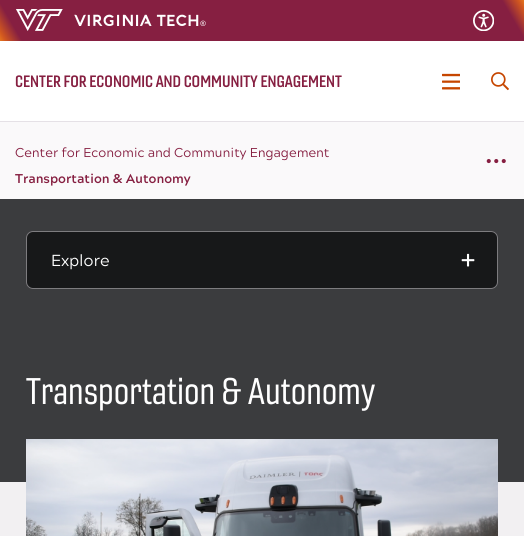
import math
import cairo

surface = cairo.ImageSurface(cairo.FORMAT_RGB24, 524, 536)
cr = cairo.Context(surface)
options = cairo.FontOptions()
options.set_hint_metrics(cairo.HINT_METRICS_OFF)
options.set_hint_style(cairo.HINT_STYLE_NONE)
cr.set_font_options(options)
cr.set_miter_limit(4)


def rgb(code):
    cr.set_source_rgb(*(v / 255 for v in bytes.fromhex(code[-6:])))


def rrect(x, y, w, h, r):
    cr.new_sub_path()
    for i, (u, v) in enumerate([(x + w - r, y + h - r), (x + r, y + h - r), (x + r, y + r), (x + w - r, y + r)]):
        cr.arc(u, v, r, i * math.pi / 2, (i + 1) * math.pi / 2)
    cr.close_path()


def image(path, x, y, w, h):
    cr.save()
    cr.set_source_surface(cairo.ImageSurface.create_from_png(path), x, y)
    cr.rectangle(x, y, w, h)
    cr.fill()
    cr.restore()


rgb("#ffffff")
cr.paint()
rgb("#e5e1e6")
cr.rectangle(0, 121, 524, 1)
cr.fill()
gradient = cairo.LinearGradient(57, 139, 467, -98)
gradient.add_color_stop_rgba(0, 0.898, 0.459, 0.122, 1)
gradient.add_color_stop_rgba(0.01, 0.82, 0.341, 0.122, 1)
gradient.add_color_stop_rgba(0.04, 0.525, 0.122, 0.255, 1)
gradient.add_color_stop_rgba(0.96, 0.525, 0.122, 0.255, 1)
gradient.add_color_stop_rgba(0.99, 0.82, 0.341, 0.122, 1)
gradient.add_color_stop_rgba(1, 0.898, 0.459, 0.122, 1)
cr.set_source(gradient)
cr.rectangle(0, 0, 524, 41)
cr.fill()
image("img/1.png", 473, 10, 21, 21)
image("img/2.png", 16, 9, 47, 22)
image("img/3.png", 442, 73, 18, 17)
image("img/4.png", 491, 72, 18, 19)
rgb("#3b3c3e")
cr.rectangle(0, 199, 524, 283)
cr.fill()
rgb("#faf9fa")
cr.rectangle(0, 122, 524, 77)
cr.fill()
rgb("#171819")
rrect(26, 231, 472, 58, 7)
cr.fill()
rrect(26.5, 231.5, 471, 57, 6.5)
cr.set_source_rgba(0.898, 0.882, 0.902, 0.5)
cr.set_line_width(1)
cr.stroke()
image("img/5.png", 461, 253, 14, 14)
rgb("#f2f0f2")
cr.rectangle(0, 482, 524, 54)
cr.fill()
image("img/6.png", 26, 439, 472, 97)
cr.select_font_face("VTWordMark")
cr.set_font_size(16)
rgb("#ffffff")
cr.move_to(74, 26)
cr.show_text("VIRGINIA TECH®")
cr.select_font_face("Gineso", cairo.FONT_SLANT_NORMAL, cairo.FONT_WEIGHT_BOLD)
rgb("#861f41")
cr.move_to(15, 87)
cr.show_text("CENTER FOR ECONOMIC AND COMMUNITY ENGAGEMENT")
cr.select_font_face("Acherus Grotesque")
cr.set_font_size(12.8)
cr.move_to(15, 157)
cr.show_text("Center for Economic and Community Engagement")
cr.select_font_face("Acherus Grotesque", cairo.FONT_SLANT_NORMAL, cairo.FONT_WEIGHT_BOLD)
cr.move_to(15, 183)
cr.show_text("Transportation & Autonomy")
cr.select_font_face("Acherus Grotesque")
cr.set_font_size(32)
cr.move_to(485, 172)
cr.show_text("···")
cr.set_font_size(16)
rgb("#ffffff")
cr.move_to(51, 266)
cr.show_text("Explore")
cr.select_font_face("Gineso Medium")
cr.set_font_size(36)
cr.move_to(26, 404)
cr.show_text("Transportation & Autonomy")
surface.write_to_png("page.png")
